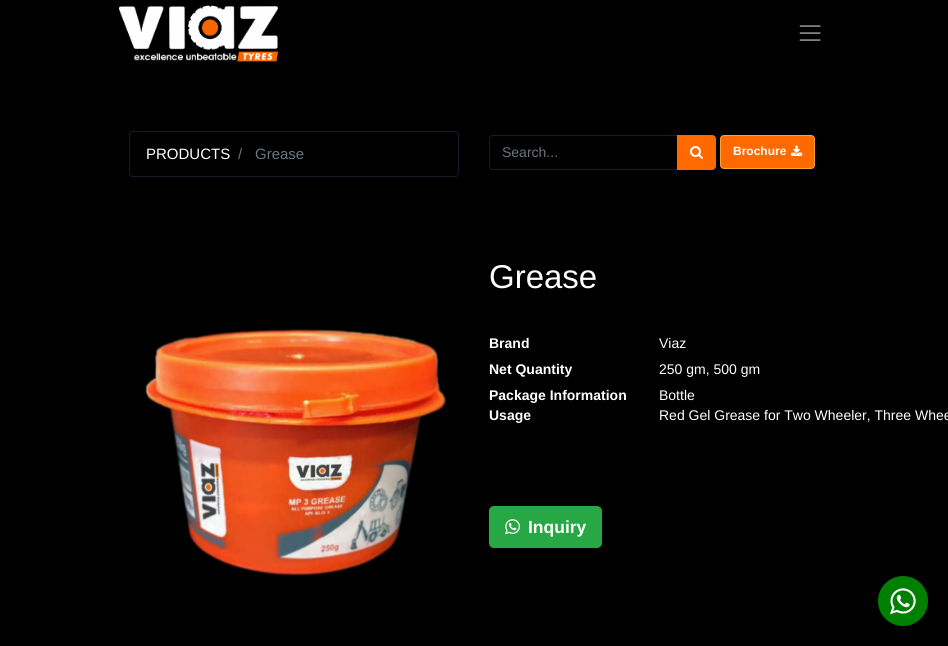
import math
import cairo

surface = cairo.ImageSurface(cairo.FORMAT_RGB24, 948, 646)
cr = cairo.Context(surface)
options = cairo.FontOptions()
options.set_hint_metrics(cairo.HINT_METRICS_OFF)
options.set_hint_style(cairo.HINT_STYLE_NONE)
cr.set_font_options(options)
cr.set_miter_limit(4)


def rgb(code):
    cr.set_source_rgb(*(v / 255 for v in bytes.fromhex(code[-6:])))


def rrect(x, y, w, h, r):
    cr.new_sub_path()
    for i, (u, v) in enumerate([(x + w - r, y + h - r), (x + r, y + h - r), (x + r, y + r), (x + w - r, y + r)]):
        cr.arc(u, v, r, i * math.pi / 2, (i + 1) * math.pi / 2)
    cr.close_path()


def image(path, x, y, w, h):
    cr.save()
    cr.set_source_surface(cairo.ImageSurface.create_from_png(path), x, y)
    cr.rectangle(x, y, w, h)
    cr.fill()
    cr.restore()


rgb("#000000")
cr.paint()
image("img/1.png", 118, 5, 161, 57)
image("img/2.png", 799, 25, 22, 16)
rrect(129.5, 131.5, 329, 45, 3.5)
rgb("#171d26")
cr.set_line_width(1)
cr.stroke()
cr.new_path()
cr.move_to(493, 135.5)
cr.line_to(677.5, 135.5)
cr.line_to(677.5, 169.5)
cr.line_to(493, 169.5)
cr.curve_to(491, 169.5, 489.5, 168, 489.5, 166)
cr.line_to(489.5, 139)
cr.curve_to(489.5, 137, 491, 135.5, 493, 135.5)
cr.close_path()
cr.stroke()
rgb("#ff6900")
cr.new_path()
cr.move_to(677.5, 135.5)
cr.line_to(712, 135.5)
cr.curve_to(714, 135.5, 715.5, 137, 715.5, 139)
cr.line_to(715.5, 166)
cr.curve_to(715.5, 168, 714, 169.5, 712, 169.5)
cr.line_to(677.5, 169.5)
cr.close_path()
cr.fill_preserve()
cr.stroke()
image("img/3.png", 690, 146, 13, 13)
rrect(720.5, 135.5, 94, 33, 3.5)
cr.fill_preserve()
rgb("#faa32f")
cr.stroke()
image("img/4.png", 791, 145, 12, 11)
image("img/5.png", 145, 329, 302, 247)
rgb("#28a745")
rrect(489, 506, 113, 42, 5)
cr.fill()
image("img/6.png", 505, 519, 15, 16)
rgb("#008000")
cr.arc(903, 601, 25, 0, 2 * math.pi)
cr.fill()
image("img/7.png", 890, 588, 26, 27)
cr.select_font_face("Liberation Sans")
cr.set_font_size(15)
rgb("#ffffff")
cr.move_to(146, 159)
cr.show_text("PRODUCTS")
rgb("#6c757d")
cr.move_to(238, 159)
cr.show_text("/")
cr.move_to(255, 159)
cr.show_text("Grease")
cr.set_font_size(14)
cr.move_to(502, 157)
cr.show_text("Search...")
cr.select_font_face("Liberation Sans", cairo.FONT_SLANT_NORMAL, cairo.FONT_WEIGHT_BOLD)
cr.set_font_size(12)
rgb("#ffffff")
cr.move_to(733, 155)
cr.show_text("Brochure")
cr.select_font_face("Liberation Sans")
cr.set_font_size(33)
cr.move_to(489, 288)
cr.show_text("Grease")
cr.select_font_face("Liberation Sans", cairo.FONT_SLANT_NORMAL, cairo.FONT_WEIGHT_BOLD)
cr.set_font_size(14)
cr.move_to(489, 348)
cr.show_text("Brand")
cr.select_font_face("Liberation Sans")
cr.move_to(659, 348)
cr.show_text("Viaz")
cr.select_font_face("Liberation Sans", cairo.FONT_SLANT_NORMAL, cairo.FONT_WEIGHT_BOLD)
cr.move_to(489, 374)
cr.show_text("Net Quantity")
cr.select_font_face("Liberation Sans")
cr.move_to(659, 374)
cr.show_text("250 gm, 500 gm")
cr.select_font_face("Liberation Sans", cairo.FONT_SLANT_NORMAL, cairo.FONT_WEIGHT_BOLD)
cr.move_to(489, 400)
cr.show_text("Package Information")
cr.move_to(489, 420)
cr.show_text("Usage")
cr.select_font_face("Liberation Sans")
cr.move_to(659, 400)
cr.show_text("Bottle")
cr.move_to(659, 420)
cr.show_text("Red Gel Grease for Two Wheeler, Three Whee")
cr.select_font_face("Liberation Sans", cairo.FONT_SLANT_NORMAL, cairo.FONT_WEIGHT_BOLD)
cr.set_font_size(17.5)
cr.move_to(528, 533)
cr.show_text("Inquiry")
surface.write_to_png("page.png")
